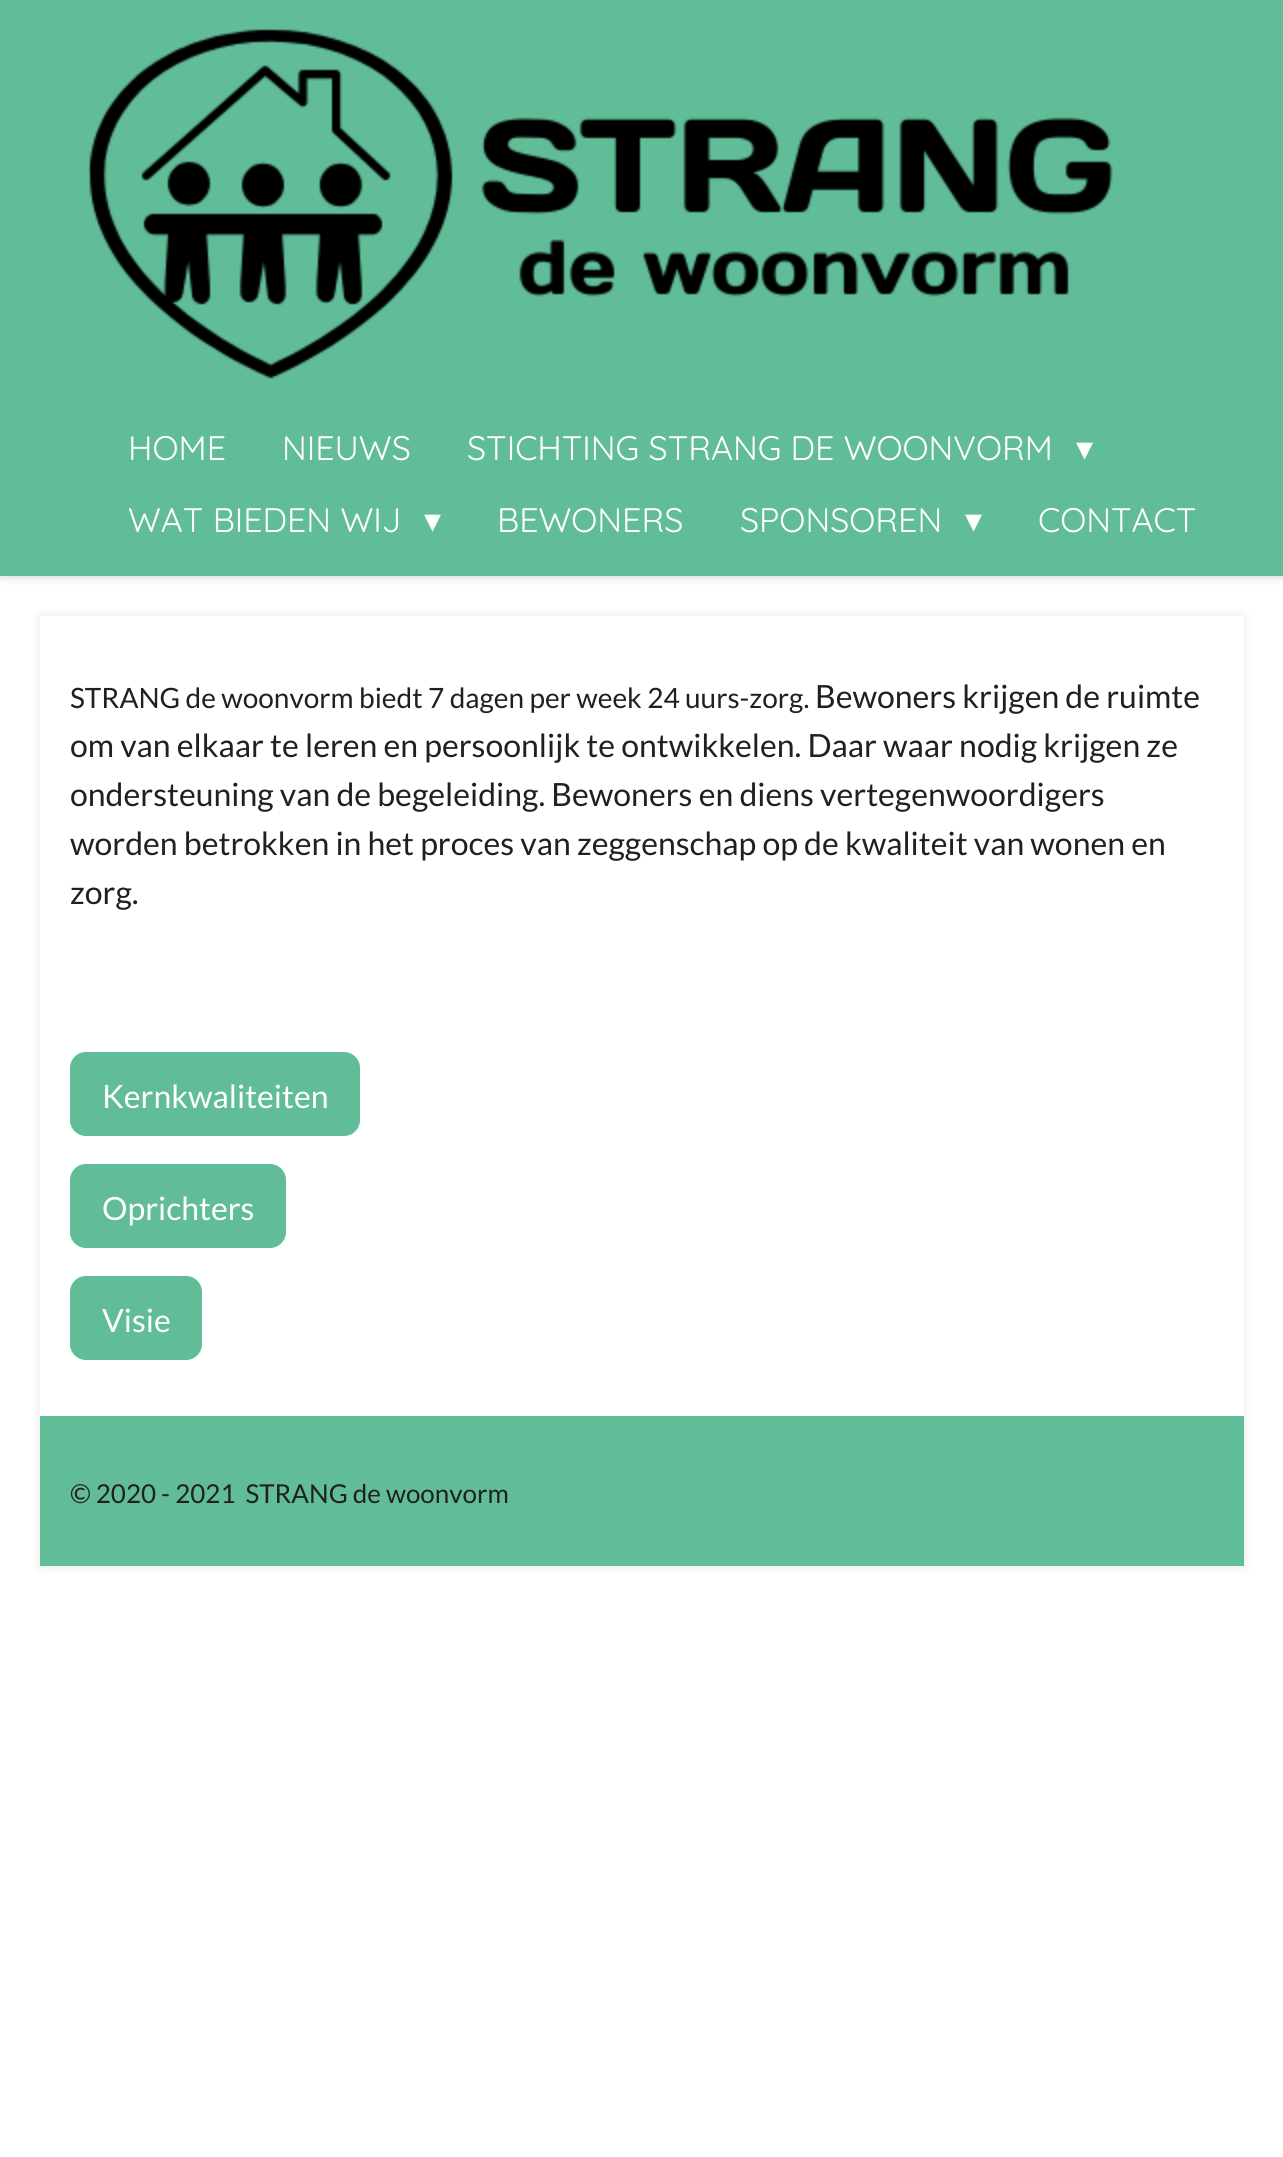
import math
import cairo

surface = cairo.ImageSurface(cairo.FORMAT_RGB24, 1283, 2157)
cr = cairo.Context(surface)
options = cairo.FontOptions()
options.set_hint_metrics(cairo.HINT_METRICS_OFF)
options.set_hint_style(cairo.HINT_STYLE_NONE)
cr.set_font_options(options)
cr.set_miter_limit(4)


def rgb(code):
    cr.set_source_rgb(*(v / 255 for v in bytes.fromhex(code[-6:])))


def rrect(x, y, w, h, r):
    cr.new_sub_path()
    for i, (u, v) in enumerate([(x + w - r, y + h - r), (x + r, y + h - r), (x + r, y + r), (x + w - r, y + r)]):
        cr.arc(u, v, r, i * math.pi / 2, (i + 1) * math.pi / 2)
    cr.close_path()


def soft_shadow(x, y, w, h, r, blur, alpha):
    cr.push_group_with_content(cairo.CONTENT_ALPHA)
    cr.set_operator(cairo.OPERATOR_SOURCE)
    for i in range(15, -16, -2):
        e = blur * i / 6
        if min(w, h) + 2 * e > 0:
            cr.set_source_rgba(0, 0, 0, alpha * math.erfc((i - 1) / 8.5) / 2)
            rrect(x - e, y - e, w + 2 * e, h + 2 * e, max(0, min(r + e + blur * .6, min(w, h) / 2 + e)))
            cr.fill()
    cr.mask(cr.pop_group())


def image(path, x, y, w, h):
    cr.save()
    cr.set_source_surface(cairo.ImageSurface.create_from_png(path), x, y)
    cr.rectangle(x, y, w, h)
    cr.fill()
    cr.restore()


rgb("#ffffff")
cr.paint()
rgb("#000000")
soft_shadow(0, 0, 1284, 576, 0, 5, 0.2)
rgb("#61bd98")
cr.rectangle(0, 0, 1283, 576)
cr.fill()
image("img/1.png", 87, 29, 1026, 350)
cr.save()
cr.set_fill_rule(cairo.FILL_RULE_EVEN_ODD)
cr.new_path()
cr.move_to(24, 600)
cr.line_to(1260, 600)
cr.line_to(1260, 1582)
cr.line_to(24, 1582)
cr.close_path()
cr.move_to(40, 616)
cr.line_to(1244, 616)
cr.line_to(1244, 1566)
cr.line_to(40, 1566)
cr.close_path()
cr.clip()
rgb("#000000")
soft_shadow(40, 616, 1204, 950, 0, 5, 0.1)
cr.restore()
rrect(70, 1052, 290, 84, 16)
cr.fill()
rrect(70, 1164, 216, 84, 16)
cr.fill()
rrect(70, 1276, 132, 84, 16)
cr.fill()
cr.rectangle(40, 1416, 1204, 150)
cr.fill()
cr.select_font_face("Quicksand")
cr.set_font_size(34)
rgb("#ffffff")
for x, y, s in [
    (128, 460, "HOME"),
    (282, 460, "NIEUWS"),
    (467, 460, "STICHTING STRANG DE WOONVORM"),
]:
    cr.move_to(x, y)
    cr.show_text(s)
cr.select_font_face("DejaVu Sans")
cr.move_to(1076, 460)
cr.show_text("▾")
cr.select_font_face("Quicksand")
cr.move_to(128, 532)
cr.show_text("WAT BIEDEN WIJ")
cr.select_font_face("DejaVu Sans")
cr.move_to(424, 532)
cr.show_text("▾")
cr.select_font_face("Quicksand")
cr.move_to(497, 532)
cr.show_text("BEWONERS")
cr.move_to(740, 532)
cr.show_text("SPONSOREN")
cr.select_font_face("DejaVu Sans")
cr.move_to(965, 532)
cr.show_text("▾")
cr.select_font_face("Quicksand")
cr.move_to(1038, 532)
cr.show_text("CONTACT")
cr.select_font_face("Lato")
cr.set_font_size(28)
rgb("#202020")
cr.move_to(70, 708)
cr.show_text("STRANG de woonvorm biedt 7 dagen per week 24 uurs-zorg.")
cr.set_font_size(32)
for x, y, s in [
    (815, 708, "Bewoners krijgen de ruimte"),
    (70, 757, "om van elkaar te leren en persoonlijk te ontwikkelen. Daar waar nodig krijgen ze"),
    (70, 806, "ondersteuning van de begeleiding. Bewoners en diens vertegenwoordigers"),
    (70, 855, "worden betrokken in het proces van zeggenschap op de kwaliteit van wonen en"),
    (70, 904, "zorg."),
]:
    cr.move_to(x, y)
    cr.show_text(s)
rgb("#ffffff")
for x, y, s in [
    (102, 1108, "Kernkwaliteiten"),
    (102, 1220, "Oprichters"),
    (102, 1332, "Visie"),
]:
    cr.move_to(x, y)
    cr.show_text(s)
cr.set_font_size(26)
rgb("#202020")
cr.move_to(70, 1503)
cr.show_text("© 2020 - 2021  STRANG de woonvorm")
surface.write_to_png("page.png")
